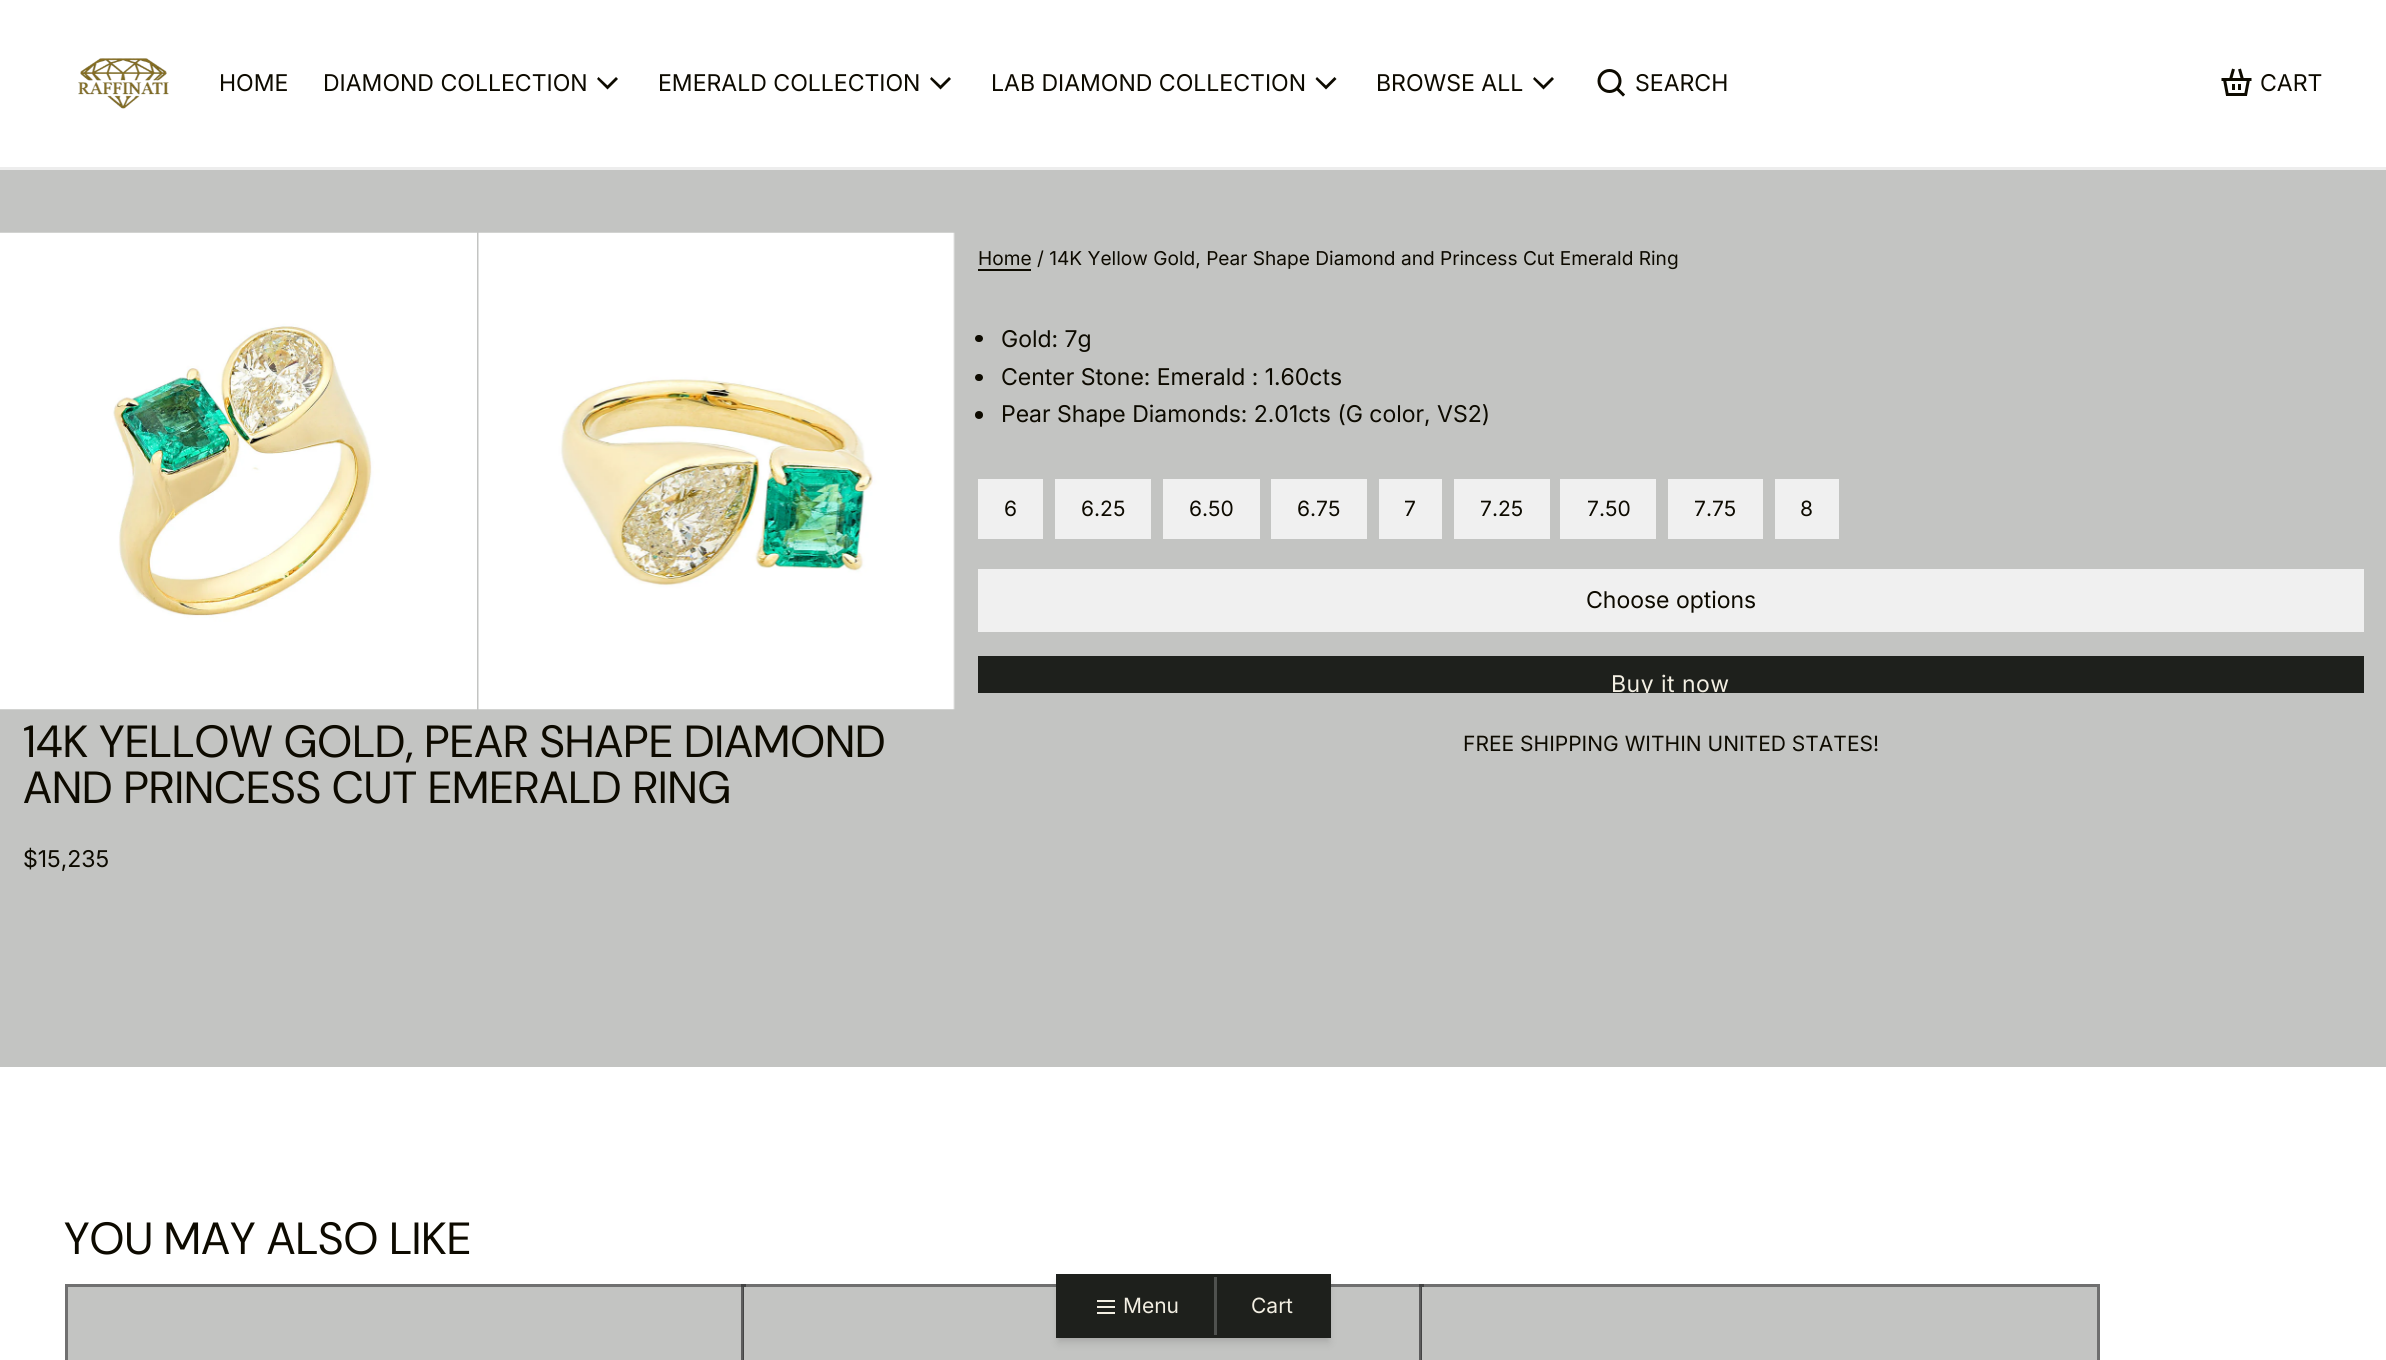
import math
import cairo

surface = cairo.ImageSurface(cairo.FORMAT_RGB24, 2386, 1360)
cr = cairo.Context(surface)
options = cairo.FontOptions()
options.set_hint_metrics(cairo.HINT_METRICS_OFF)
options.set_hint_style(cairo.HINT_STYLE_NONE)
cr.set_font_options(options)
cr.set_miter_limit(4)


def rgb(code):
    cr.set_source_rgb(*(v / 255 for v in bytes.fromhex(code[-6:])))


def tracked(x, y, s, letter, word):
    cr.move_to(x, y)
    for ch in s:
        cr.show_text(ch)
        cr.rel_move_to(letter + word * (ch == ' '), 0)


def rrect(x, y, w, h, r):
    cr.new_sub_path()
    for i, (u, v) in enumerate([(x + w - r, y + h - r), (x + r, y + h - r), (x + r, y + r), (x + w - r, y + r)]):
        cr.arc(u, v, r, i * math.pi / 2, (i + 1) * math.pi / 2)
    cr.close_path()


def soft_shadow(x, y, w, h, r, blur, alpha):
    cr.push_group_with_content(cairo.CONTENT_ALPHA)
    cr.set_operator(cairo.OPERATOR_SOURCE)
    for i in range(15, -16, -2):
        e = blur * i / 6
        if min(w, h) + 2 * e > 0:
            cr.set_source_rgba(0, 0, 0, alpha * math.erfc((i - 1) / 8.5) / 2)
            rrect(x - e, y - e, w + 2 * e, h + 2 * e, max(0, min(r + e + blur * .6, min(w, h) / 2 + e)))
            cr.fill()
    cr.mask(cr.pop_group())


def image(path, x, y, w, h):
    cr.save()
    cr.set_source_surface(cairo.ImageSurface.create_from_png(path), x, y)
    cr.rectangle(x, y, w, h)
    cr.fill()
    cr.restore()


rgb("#ffffff")
cr.paint()
rgb("#ededed")
cr.rectangle(0, 167, 2386, 3)
cr.fill()
image("img/1.png", 78, 58, 91, 51)
rgb("#0d0a00")
cr.set_fill_rule(cairo.FILL_RULE_EVEN_ODD)
cr.new_path()
cr.move_to(598.5, 77)
cr.line_to(607.5, 85.5)
cr.line_to(616, 77)
cr.line_to(618, 79)
cr.line_to(607.5, 89.5)
cr.line_to(597, 79)
cr.close_path()
cr.fill()
cr.new_path()
cr.move_to(931.5, 77)
cr.line_to(940.5, 85.5)
cr.line_to(949, 77)
cr.line_to(951, 79)
cr.line_to(940.5, 89.5)
cr.line_to(930, 79)
cr.close_path()
cr.fill()
cr.new_path()
cr.move_to(1317, 77)
cr.line_to(1326, 85.5)
cr.line_to(1334.5, 77)
cr.line_to(1336.5, 79)
cr.line_to(1326, 89.5)
cr.line_to(1315.5, 79)
cr.close_path()
cr.fill()
cr.new_path()
cr.move_to(1534.5, 77)
cr.line_to(1543.5, 85.5)
cr.line_to(1552, 77)
cr.line_to(1554, 79)
cr.line_to(1543.5, 89.5)
cr.line_to(1533, 79)
cr.close_path()
cr.fill()
image("img/2.png", 1597, 69, 28, 28)
image("img/3.png", 2221, 68, 31, 28)
rgb("#c3c4c2")
cr.rectangle(0, 170, 2386, 897)
cr.fill()
rgb("#0d0a00")
cr.rectangle(978, 269, 53, 2)
cr.fill()
rrect(975, 335, 8, 7, 3.5)
cr.fill()
rrect(975, 374, 8, 7, 3.5)
cr.fill()
cr.arc(979, 415, 4, 0, 2 * math.pi)
cr.fill()
for x, y, w, h, color in [
    (978, 479, 65, 60, "#f0f0f0"),
    (1055, 479, 96, 60, "#f0f0f0"),
    (1163, 479, 97, 60, "#f0f0f0"),
    (1271, 479, 96, 60, "#f0f0f0"),
    (1379, 479, 63, 60, "#f0f0f0"),
    (1454, 479, 96, 60, "#f0f0f0"),
    (1560, 479, 96, 60, "#f0f0f0"),
    (1668, 479, 95, 60, "#f0f0f0"),
    (1775, 479, 64, 60, "#f0f0f0"),
    (978, 569, 1386, 63, "#f0f0f0"),
    (978, 656, 1386, 37, "#1e201c"),
]:
    rgb(color)
    cr.rectangle(x, y, w, h)
    cr.fill()
image("img/4.png", 0, 232, 477, 478)
image("img/5.png", 478, 232, 477, 478)
rgb("#c3c4c2")
cr.rectangle(66.5, 1285.5, 678, 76)
cr.fill_preserve()
rgb("#707070")
cr.set_line_width(3)
cr.stroke()
rgb("#c3c4c2")
cr.rectangle(744, 1287, 677, 73)
cr.fill()
cr.rectangle(742.5, 1285.5, 680, 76)
cr.set_source_rgba(0.2, 0.2, 0.2, 0.7)
cr.stroke()
rgb("#c3c4c2")
cr.rectangle(1422, 1287, 675, 73)
cr.fill()
cr.rectangle(1420.5, 1285.5, 678, 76)
cr.set_source_rgba(0.2, 0.2, 0.2, 0.7)
cr.stroke()
rgb("#000000")
soft_shadow(1059, 1280, 269, 58, 0, 3, 0.1)
soft_shadow(1058, 1281, 271, 62, 0, 4.5, 0.1)
for x, y, w, h, color in [
    (1056, 1274, 275, 64, "#1e201c"),
    (1214, 1277, 3, 58, "#4f514e"),
    (1097, 1300, 18, 2, "#f2eee2"),
    (1097, 1306, 18, 2, "#f2eee2"),
    (1097, 1312, 18, 2, "#f2eee2"),
]:
    rgb(color)
    cr.rectangle(x, y, w, h)
    cr.fill()
cr.select_font_face("Inter")
cr.set_font_size(23.1)
rgb("#0d0a00")
for x, y, s in [
    (219, 91, "HOME"),
    (323, 91, "DIAMOND COLLECTION"),
    (658, 91, "EMERALD COLLECTION"),
    (991, 91, "LAB DIAMOND COLLECTION"),
    (1376, 91, "BROWSE ALL"),
    (1635, 91, "SEARCH"),
    (2260, 91, "CART"),
]:
    cr.move_to(x, y)
    cr.show_text(s)
cr.select_font_face("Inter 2")
cr.set_font_size(19.1)
cr.move_to(978, 265)
cr.show_text("Home / 14K Yellow Gold, Pear Shape Diamond and Princess Cut Emerald Ring")
cr.select_font_face("Inter")
cr.set_font_size(23.1)
for x, y, s in [
    (1001, 347, "Gold: 7g"),
    (1001, 385, "Center Stone: Emerald : 1.60cts"),
    (1001, 422, "Pear Shape Diamonds: 2.01cts (G color, VS2)"),
]:
    cr.move_to(x, y)
    cr.show_text(s)
cr.select_font_face("Inter 2")
cr.set_font_size(21)
for x, y, s in [
    (1004, 516, "6"),
    (1081, 516, "6.25"),
    (1189, 516, "6.50"),
    (1297, 516, "6.75"),
    (1404, 516, "7"),
    (1480, 516, "7.25"),
    (1587, 516, "7.50"),
    (1694, 516, "7.75"),
    (1800, 516, "8"),
]:
    cr.move_to(x, y)
    cr.show_text(s)
cr.select_font_face("Inter")
cr.set_font_size(23.1)
cr.move_to(1586, 608)
cr.show_text("Choose options")
cr.save()
cr.set_fill_rule(cairo.FILL_RULE_WINDING)
cr.rectangle(978, 656, 1386, 37)
cr.clip()
rgb("#f2eee2")
tracked(1611, 692, "Buy it now", 0.5, 0)
cr.restore()
cr.select_font_face("Inter 2")
cr.set_font_size(21)
cr.move_to(1463, 751)
cr.show_text("FREE SHIPPING WITHIN UNITED STATES!")
cr.select_font_face("DM Sans")
cr.set_font_size(45)
cr.move_to(23, 757)
cr.show_text("14K YELLOW GOLD, PEAR SHAPE DIAMOND")
cr.move_to(23, 803)
cr.show_text("AND PRINCESS CUT EMERALD RING")
cr.select_font_face("Inter")
cr.set_font_size(23.1)
cr.move_to(23, 867)
cr.show_text("$15,235")
cr.select_font_face("DM Sans")
cr.set_font_size(45)
cr.move_to(64, 1254)
cr.show_text("YOU MAY ALSO LIKE")
cr.select_font_face("Inter 2")
cr.set_font_size(21)
rgb("#f2eee2")
cr.move_to(1123, 1313)
cr.show_text("Menu")
cr.move_to(1251, 1313)
cr.show_text("Cart")
surface.write_to_png("page.png")
